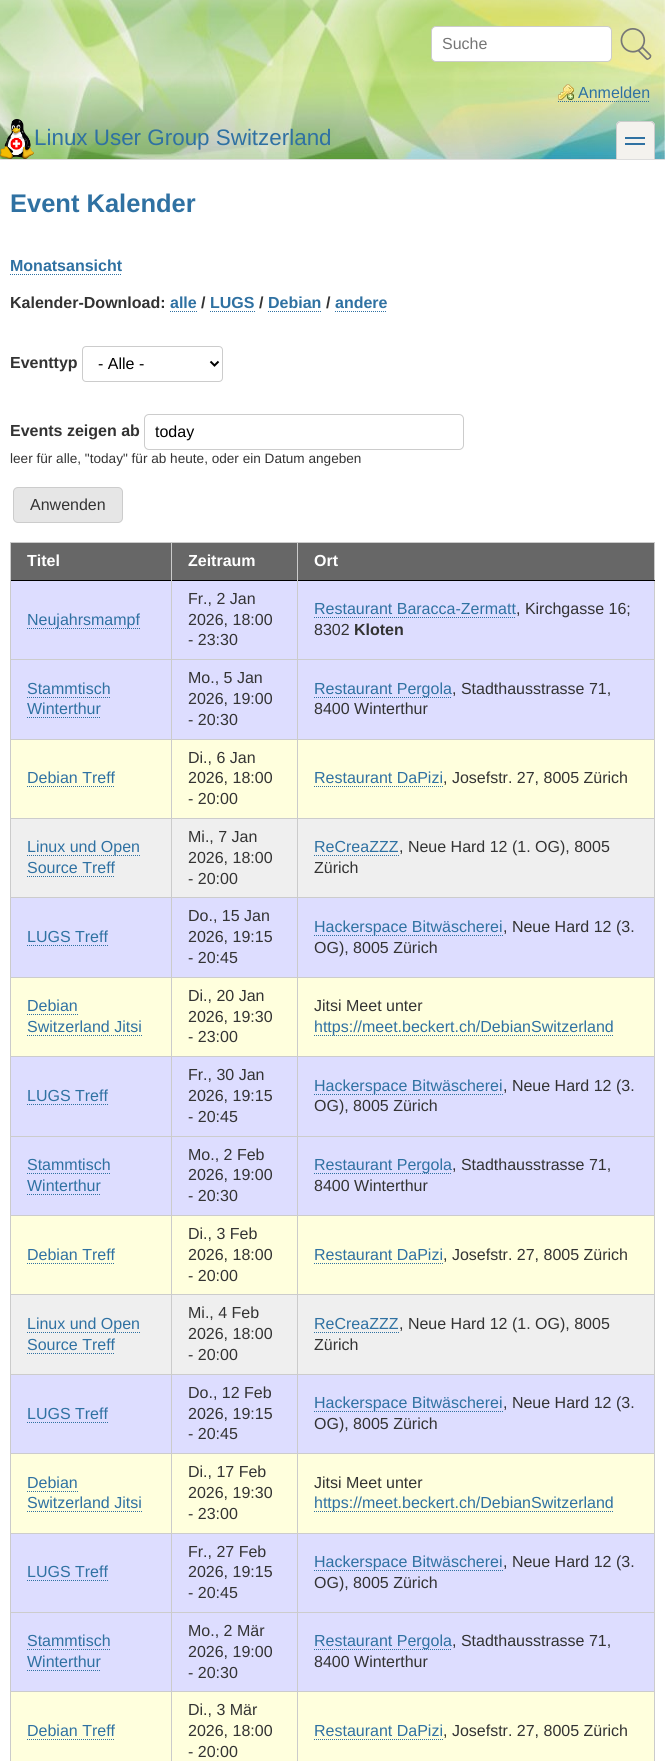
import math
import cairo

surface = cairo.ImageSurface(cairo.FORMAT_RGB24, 665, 1761)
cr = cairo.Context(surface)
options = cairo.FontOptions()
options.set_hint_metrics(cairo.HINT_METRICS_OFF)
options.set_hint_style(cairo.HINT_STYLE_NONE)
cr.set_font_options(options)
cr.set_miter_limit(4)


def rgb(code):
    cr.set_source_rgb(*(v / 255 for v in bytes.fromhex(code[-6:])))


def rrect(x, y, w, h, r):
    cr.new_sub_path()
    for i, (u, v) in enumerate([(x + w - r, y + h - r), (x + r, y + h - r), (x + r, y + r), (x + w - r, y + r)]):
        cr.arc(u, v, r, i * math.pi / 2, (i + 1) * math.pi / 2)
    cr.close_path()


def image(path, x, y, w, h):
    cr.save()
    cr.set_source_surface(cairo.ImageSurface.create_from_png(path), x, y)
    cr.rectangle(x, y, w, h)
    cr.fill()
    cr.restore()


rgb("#ffffff")
cr.paint()
image("img/1.png", 0, 0, 665, 159)
rgb("#ffffff")
rrect(431.5, 26.5, 180, 35, 4.5)
cr.fill_preserve()
rgb("#cccccc")
cr.set_line_width(1)
cr.stroke()
image("img/2.png", 620, 28, 32, 32)
image("img/3.png", 558, 84, 16, 16)
cr.new_path()
cr.move_to(558, 101.5)
cr.line_to(650, 101.5)
rgb("#2f71a2")
cr.set_dash([1, 1])
cr.stroke()
rgb("#dddddd")
cr.rectangle(0, 159, 665, 1)
cr.fill()
rgb("#f4f2ee")
cr.new_path()
cr.move_to(621, 121)
cr.line_to(650, 121)
cr.curve_to(653, 121, 655, 123, 655, 126)
cr.line_to(655, 159)
cr.line_to(616, 159)
cr.line_to(616, 126)
cr.curve_to(616, 123, 618, 121, 621, 121)
cr.close_path()
cr.fill()
rgb("#cccccc")
cr.set_fill_rule(cairo.FILL_RULE_EVEN_ODD)
cr.new_path()
cr.move_to(621, 121)
cr.line_to(650, 121)
cr.curve_to(653, 121, 655, 123, 655, 126)
cr.line_to(655, 159)
cr.line_to(616, 159)
cr.line_to(616, 126)
cr.curve_to(616, 123, 618, 121, 621, 121)
cr.close_path()
cr.move_to(621, 122)
cr.line_to(650, 122)
cr.curve_to(652, 122, 654, 124, 654, 126)
cr.line_to(654, 159)
cr.line_to(617, 159)
cr.line_to(617, 126)
cr.curve_to(617, 124, 619, 122, 621, 122)
cr.close_path()
cr.fill()
rgb("#2f71a2")
cr.rectangle(625, 137, 20, 2)
cr.fill()
cr.rectangle(625, 143, 20, 2)
cr.fill()
image("img/4.png", 0, 119, 34, 40)
cr.new_path()
cr.move_to(10, 274.5)
cr.line_to(122, 274.5)
cr.stroke()
cr.new_path()
cr.move_to(170, 311.5)
cr.line_to(197, 311.5)
cr.stroke()
cr.new_path()
cr.move_to(210, 311.5)
cr.line_to(255, 311.5)
cr.stroke()
cr.new_path()
cr.move_to(268, 311.5)
cr.line_to(321, 311.5)
cr.stroke()
cr.new_path()
cr.move_to(335, 311.5)
cr.line_to(387, 311.5)
cr.stroke()
rrect(82.5, 346.5, 140, 35, 3.5)
rgb("#cccccc")
cr.set_dash([])
cr.stroke()
cr.new_path()
cr.move_to(210.5, 361.5)
cr.line_to(214.5, 365.5)
cr.line_to(218.5, 361.5)
rgb("#000000")
cr.set_line_width(2)
cr.stroke()
rrect(144.5, 414.5, 319, 35, 4.5)
rgb("#cccccc")
cr.set_line_width(1)
cr.stroke()
rgb("#e6e6e6")
rrect(13.5, 487.5, 109, 35, 4.5)
cr.fill_preserve()
rgb("#cccccc")
cr.stroke()
for x, y, w, h, color in [
    (10, 542, 645, 1, "#cbcbcb"),
    (654, 542, 1, 1219, "#cbcbcb"),
    (10, 542, 1, 1219, "#cbcbcb"),
    (10, 580, 645, 1, "#000000"),
    (11, 543, 160, 37, "#676767"),
    (172, 543, 125, 37, "#676767"),
    (298, 543, 356, 37, "#676767"),
    (10, 659, 645, 1, "#cccccc"),
    (11, 581, 160, 78, "#ddddff"),
    (10, 580, 1, 1, "#cbcbcb"),
]:
    rgb(color)
    cr.rectangle(x, y, w, h)
    cr.fill()
cr.new_path()
cr.move_to(27, 628.5)
cr.line_to(140, 628.5)
rgb("#2f71a2")
cr.set_dash([1, 1])
cr.stroke()
rgb("#ddddff")
cr.rectangle(172, 581, 125, 78)
cr.fill()
cr.rectangle(298, 581, 356, 78)
cr.fill()
cr.new_path()
cr.move_to(314, 617.5)
cr.line_to(516, 617.5)
rgb("#2f71a2")
cr.stroke()
rgb("#cccccc")
cr.rectangle(10, 739, 645, 1)
cr.fill()
rgb("#ddddff")
cr.rectangle(11, 660, 160, 79)
cr.fill()
cr.new_path()
cr.move_to(27, 697.5)
cr.line_to(111, 697.5)
rgb("#2f71a2")
cr.stroke()
cr.new_path()
cr.move_to(27, 717.5)
cr.line_to(101, 717.5)
cr.stroke()
rgb("#ddddff")
cr.rectangle(172, 660, 125, 79)
cr.fill()
cr.rectangle(298, 660, 356, 79)
cr.fill()
cr.new_path()
cr.move_to(314, 697.5)
cr.line_to(452, 697.5)
rgb("#2f71a2")
cr.stroke()
rgb("#cccccc")
cr.rectangle(10, 818, 645, 1)
cr.fill()
rgb("#ffffdd")
cr.rectangle(11, 740, 160, 78)
cr.fill()
cr.new_path()
cr.move_to(27, 786.5)
cr.line_to(115, 786.5)
rgb("#2f71a2")
cr.stroke()
rgb("#ffffdd")
cr.rectangle(172, 740, 125, 78)
cr.fill()
cr.rectangle(298, 740, 356, 78)
cr.fill()
cr.new_path()
cr.move_to(314, 786.5)
cr.line_to(443, 786.5)
rgb("#2f71a2")
cr.stroke()
rgb("#efefef")
cr.rectangle(11, 819, 643, 78)
cr.fill()
rgb("#cccccc")
cr.rectangle(10, 897, 645, 1)
cr.fill()
cr.new_path()
cr.move_to(27, 855.5)
cr.line_to(140, 855.5)
rgb("#2f71a2")
cr.stroke()
cr.new_path()
cr.move_to(27, 876.5)
cr.line_to(115, 876.5)
cr.stroke()
cr.new_path()
cr.move_to(314, 855.5)
cr.line_to(399, 855.5)
cr.stroke()
rgb("#cccccc")
cr.rectangle(10, 977, 645, 1)
cr.fill()
rgb("#ddddff")
cr.rectangle(11, 898, 160, 79)
cr.fill()
cr.new_path()
cr.move_to(27, 945.5)
cr.line_to(108, 945.5)
rgb("#2f71a2")
cr.stroke()
rgb("#ddddff")
cr.rectangle(172, 898, 125, 79)
cr.fill()
cr.rectangle(298, 898, 356, 79)
cr.fill()
cr.new_path()
cr.move_to(314, 935.5)
cr.line_to(503, 935.5)
rgb("#2f71a2")
cr.stroke()
rgb("#cccccc")
cr.rectangle(10, 1056, 645, 1)
cr.fill()
rgb("#ffffdd")
cr.rectangle(11, 978, 160, 78)
cr.fill()
cr.new_path()
cr.move_to(27, 1014.5)
cr.line_to(78, 1014.5)
rgb("#2f71a2")
cr.stroke()
cr.new_path()
cr.move_to(27, 1035.5)
cr.line_to(142, 1035.5)
cr.stroke()
rgb("#ffffdd")
cr.rectangle(172, 978, 125, 78)
cr.fill()
cr.rectangle(298, 978, 356, 78)
cr.fill()
cr.new_path()
cr.move_to(314, 1035.5)
cr.line_to(614, 1035.5)
rgb("#2f71a2")
cr.stroke()
rgb("#cccccc")
cr.rectangle(10, 1136, 645, 1)
cr.fill()
rgb("#ddddff")
cr.rectangle(11, 1057, 160, 79)
cr.fill()
cr.new_path()
cr.move_to(27, 1104.5)
cr.line_to(108, 1104.5)
rgb("#2f71a2")
cr.stroke()
rgb("#ddddff")
cr.rectangle(172, 1057, 125, 79)
cr.fill()
cr.rectangle(298, 1057, 356, 79)
cr.fill()
cr.new_path()
cr.move_to(314, 1094.5)
cr.line_to(503, 1094.5)
rgb("#2f71a2")
cr.stroke()
rgb("#cccccc")
cr.rectangle(10, 1215, 645, 1)
cr.fill()
rgb("#ddddff")
cr.rectangle(11, 1137, 160, 78)
cr.fill()
cr.new_path()
cr.move_to(27, 1173.5)
cr.line_to(111, 1173.5)
rgb("#2f71a2")
cr.stroke()
cr.new_path()
cr.move_to(27, 1194.5)
cr.line_to(101, 1194.5)
cr.stroke()
rgb("#ddddff")
cr.rectangle(172, 1137, 125, 78)
cr.fill()
cr.rectangle(298, 1137, 356, 78)
cr.fill()
cr.new_path()
cr.move_to(314, 1173.5)
cr.line_to(452, 1173.5)
rgb("#2f71a2")
cr.stroke()
rgb("#cccccc")
cr.rectangle(10, 1294, 645, 1)
cr.fill()
rgb("#ffffdd")
cr.rectangle(11, 1216, 160, 78)
cr.fill()
cr.new_path()
cr.move_to(27, 1263.5)
cr.line_to(115, 1263.5)
rgb("#2f71a2")
cr.stroke()
rgb("#ffffdd")
cr.rectangle(172, 1216, 125, 78)
cr.fill()
cr.rectangle(298, 1216, 356, 78)
cr.fill()
cr.new_path()
cr.move_to(314, 1263.5)
cr.line_to(443, 1263.5)
rgb("#2f71a2")
cr.stroke()
rgb("#efefef")
cr.rectangle(11, 1295, 643, 79)
cr.fill()
rgb("#cccccc")
cr.rectangle(10, 1374, 645, 1)
cr.fill()
cr.new_path()
cr.move_to(27, 1332.5)
cr.line_to(140, 1332.5)
rgb("#2f71a2")
cr.stroke()
cr.new_path()
cr.move_to(27, 1353.5)
cr.line_to(115, 1353.5)
cr.stroke()
cr.new_path()
cr.move_to(314, 1332.5)
cr.line_to(399, 1332.5)
cr.stroke()
rgb("#cccccc")
cr.rectangle(10, 1453, 645, 1)
cr.fill()
rgb("#ddddff")
cr.rectangle(11, 1375, 160, 78)
cr.fill()
cr.new_path()
cr.move_to(27, 1422.5)
cr.line_to(108, 1422.5)
rgb("#2f71a2")
cr.stroke()
rgb("#ddddff")
cr.rectangle(172, 1375, 125, 78)
cr.fill()
cr.rectangle(298, 1375, 356, 78)
cr.fill()
cr.new_path()
cr.move_to(314, 1411.5)
cr.line_to(503, 1411.5)
rgb("#2f71a2")
cr.stroke()
rgb("#cccccc")
cr.rectangle(10, 1533, 645, 1)
cr.fill()
rgb("#ffffdd")
cr.rectangle(11, 1454, 160, 79)
cr.fill()
cr.new_path()
cr.move_to(27, 1491.5)
cr.line_to(78, 1491.5)
rgb("#2f71a2")
cr.stroke()
cr.new_path()
cr.move_to(27, 1511.5)
cr.line_to(142, 1511.5)
cr.stroke()
rgb("#ffffdd")
cr.rectangle(172, 1454, 125, 79)
cr.fill()
cr.rectangle(298, 1454, 356, 79)
cr.fill()
cr.new_path()
cr.move_to(314, 1511.5)
cr.line_to(614, 1511.5)
rgb("#2f71a2")
cr.stroke()
rgb("#cccccc")
cr.rectangle(10, 1612, 645, 1)
cr.fill()
rgb("#ddddff")
cr.rectangle(11, 1534, 160, 78)
cr.fill()
cr.new_path()
cr.move_to(27, 1580.5)
cr.line_to(108, 1580.5)
rgb("#2f71a2")
cr.stroke()
rgb("#ddddff")
cr.rectangle(172, 1534, 125, 78)
cr.fill()
cr.rectangle(298, 1534, 356, 78)
cr.fill()
cr.new_path()
cr.move_to(314, 1570.5)
cr.line_to(503, 1570.5)
rgb("#2f71a2")
cr.stroke()
rgb("#cccccc")
cr.rectangle(10, 1691, 645, 1)
cr.fill()
rgb("#ddddff")
cr.rectangle(11, 1613, 160, 78)
cr.fill()
cr.new_path()
cr.move_to(27, 1649.5)
cr.line_to(111, 1649.5)
rgb("#2f71a2")
cr.stroke()
cr.new_path()
cr.move_to(27, 1670.5)
cr.line_to(101, 1670.5)
cr.stroke()
rgb("#ddddff")
cr.rectangle(172, 1613, 125, 78)
cr.fill()
cr.rectangle(298, 1613, 356, 78)
cr.fill()
cr.new_path()
cr.move_to(314, 1649.5)
cr.line_to(452, 1649.5)
rgb("#2f71a2")
cr.stroke()
rgb("#ffffdd")
cr.rectangle(11, 1692, 160, 69)
cr.fill()
cr.new_path()
cr.move_to(27, 1739.5)
cr.line_to(115, 1739.5)
rgb("#2f71a2")
cr.stroke()
for x, y, w, h, color in [
    (172, 1692, 125, 69, "#ffffdd"),
    (171, 542, 1, 1219, "#cbcbcb"),
    (298, 1692, 356, 69, "#ffffdd"),
    (297, 542, 1, 1219, "#cbcbcb"),
]:
    rgb(color)
    cr.rectangle(x, y, w, h)
    cr.fill()
cr.new_path()
cr.move_to(314, 1739.5)
cr.line_to(443, 1739.5)
rgb("#2f71a2")
cr.stroke()
cr.select_font_face("Liberation Sans")
cr.set_font_size(16)
rgb("#757575")
cr.move_to(442, 49)
cr.show_text("Suche")
rgb("#2f71a2")
cr.move_to(578, 98)
cr.show_text("Anmelden")
cr.set_font_size(22.4)
cr.move_to(34, 145)
cr.show_text("Linux User Group Switzerland")
cr.select_font_face("Liberation Sans", cairo.FONT_SLANT_NORMAL, cairo.FONT_WEIGHT_BOLD)
cr.set_font_size(25.5)
cr.move_to(10, 212)
cr.show_text("Event Kalender")
cr.set_font_size(16)
cr.move_to(10, 271)
cr.show_text("Monatsansicht")
rgb("#333333")
cr.move_to(10, 308)
cr.show_text("Kalender-Download:")
rgb("#2f71a2")
cr.move_to(170, 308)
cr.show_text("alle")
rgb("#333333")
cr.move_to(201, 308)
cr.show_text("/")
rgb("#2f71a2")
cr.move_to(210, 308)
cr.show_text("LUGS")
rgb("#333333")
cr.move_to(259, 308)
cr.show_text("/")
rgb("#2f71a2")
cr.move_to(268, 308)
cr.show_text("Debian")
rgb("#333333")
cr.move_to(326, 308)
cr.show_text("/")
rgb("#2f71a2")
cr.move_to(335, 308)
cr.show_text("andere")
rgb("#333333")
cr.move_to(10, 368)
cr.show_text("Eventtyp")
cr.select_font_face("Liberation Sans")
rgb("#000000")
cr.move_to(98, 369)
cr.show_text("- Alle -")
cr.select_font_face("Liberation Sans", cairo.FONT_SLANT_NORMAL, cairo.FONT_WEIGHT_BOLD)
rgb("#333333")
cr.move_to(10, 436)
cr.show_text("Events zeigen ab")
cr.select_font_face("Liberation Sans")
rgb("#000000")
cr.move_to(155, 437)
cr.show_text("today")
cr.set_font_size(13.6)
rgb("#333333")
cr.move_to(10, 463)
cr.show_text("leer für alle, \"today\" für ab heute, oder ein Datum angeben")
cr.set_font_size(16)
cr.move_to(30, 510)
cr.show_text("Anwenden")
cr.select_font_face("Liberation Sans", cairo.FONT_SLANT_NORMAL, cairo.FONT_WEIGHT_BOLD)
rgb("#ffffff")
for x, y, s in [
    (27, 566, "Titel"),
    (188, 566, "Zeitraum"),
    (314, 566, "Ort"),
]:
    cr.move_to(x, y)
    cr.show_text(s)
cr.select_font_face("Liberation Sans")
rgb("#2f71a2")
cr.move_to(27, 625)
cr.show_text("Neujahrsmampf")
rgb("#333333")
for x, y, s in [
    (188, 604, "Fr., 2 Jan"),
    (188, 625, "2026, 18:00"),
    (188, 645, "- 23:30"),
]:
    cr.move_to(x, y)
    cr.show_text(s)
rgb("#2f71a2")
cr.move_to(314, 614)
cr.show_text("Restaurant Baracca-Zermatt")
rgb("#333333")
cr.move_to(516, 614)
cr.show_text(", Kirchgasse 16;")
cr.move_to(314, 635)
cr.show_text("8302")
cr.select_font_face("Liberation Sans", cairo.FONT_SLANT_NORMAL, cairo.FONT_WEIGHT_BOLD)
cr.move_to(354, 635)
cr.show_text("Kloten")
cr.select_font_face("Liberation Sans")
rgb("#2f71a2")
cr.move_to(27, 694)
cr.show_text("Stammtisch")
cr.move_to(27, 714)
cr.show_text("Winterthur")
rgb("#333333")
for x, y, s in [
    (188, 683, "Mo., 5 Jan"),
    (188, 704, "2026, 19:00"),
    (188, 725, "- 20:30"),
]:
    cr.move_to(x, y)
    cr.show_text(s)
rgb("#2f71a2")
cr.move_to(314, 694)
cr.show_text("Restaurant Pergola")
rgb("#333333")
cr.move_to(452, 694)
cr.show_text(", Stadthausstrasse 71,")
cr.move_to(314, 714)
cr.show_text("8400 Winterthur")
rgb("#2f71a2")
cr.move_to(27, 783)
cr.show_text("Debian Treff")
rgb("#333333")
for x, y, s in [
    (188, 763, "Di., 6 Jan"),
    (188, 783, "2026, 18:00"),
    (188, 804, "- 20:00"),
]:
    cr.move_to(x, y)
    cr.show_text(s)
rgb("#2f71a2")
cr.move_to(314, 783)
cr.show_text("Restaurant DaPizi")
rgb("#333333")
cr.move_to(443, 783)
cr.show_text(", Josefstr. 27, 8005 Zürich")
rgb("#2f71a2")
cr.move_to(27, 852)
cr.show_text("Linux und Open")
cr.move_to(27, 873)
cr.show_text("Source Treff")
rgb("#333333")
for x, y, s in [
    (188, 842, "Mi., 7 Jan"),
    (188, 863, "2026, 18:00"),
    (188, 884, "- 20:00"),
]:
    cr.move_to(x, y)
    cr.show_text(s)
rgb("#2f71a2")
cr.move_to(314, 852)
cr.show_text("ReCreaZZZ")
rgb("#333333")
cr.move_to(399, 852)
cr.show_text(", Neue Hard 12 (1. OG), 8005")
cr.move_to(314, 873)
cr.show_text("Zürich")
rgb("#2f71a2")
cr.move_to(27, 942)
cr.show_text("LUGS Treff")
rgb("#333333")
for x, y, s in [
    (188, 921, "Do., 15 Jan"),
    (188, 942, "2026, 19:15"),
    (188, 963, "- 20:45"),
]:
    cr.move_to(x, y)
    cr.show_text(s)
rgb("#2f71a2")
cr.move_to(314, 932)
cr.show_text("Hackerspace Bitwäscherei")
rgb("#333333")
cr.move_to(503, 932)
cr.show_text(", Neue Hard 12 (3.")
cr.move_to(314, 953)
cr.show_text("OG), 8005 Zürich")
rgb("#2f71a2")
cr.move_to(27, 1011)
cr.show_text("Debian")
cr.move_to(27, 1032)
cr.show_text("Switzerland Jitsi")
rgb("#333333")
for x, y, s in [
    (188, 1001, "Di., 20 Jan"),
    (188, 1022, "2026, 19:30"),
    (188, 1042, "- 23:00"),
    (314, 1011, "Jitsi Meet unter"),
]:
    cr.move_to(x, y)
    cr.show_text(s)
rgb("#2f71a2")
cr.move_to(314, 1032)
cr.show_text("https://meet.beckert.ch/DebianSwitzerland")
cr.move_to(27, 1101)
cr.show_text("LUGS Treff")
rgb("#333333")
for x, y, s in [
    (188, 1080, "Fr., 30 Jan"),
    (188, 1101, "2026, 19:15"),
    (188, 1122, "- 20:45"),
]:
    cr.move_to(x, y)
    cr.show_text(s)
rgb("#2f71a2")
cr.move_to(314, 1091)
cr.show_text("Hackerspace Bitwäscherei")
rgb("#333333")
cr.move_to(503, 1091)
cr.show_text(", Neue Hard 12 (3.")
cr.move_to(314, 1111)
cr.show_text("OG), 8005 Zürich")
rgb("#2f71a2")
cr.move_to(27, 1170)
cr.show_text("Stammtisch")
cr.move_to(27, 1191)
cr.show_text("Winterthur")
rgb("#333333")
for x, y, s in [
    (188, 1160, "Mo., 2 Feb"),
    (188, 1180, "2026, 19:00"),
    (188, 1201, "- 20:30"),
]:
    cr.move_to(x, y)
    cr.show_text(s)
rgb("#2f71a2")
cr.move_to(314, 1170)
cr.show_text("Restaurant Pergola")
rgb("#333333")
cr.move_to(452, 1170)
cr.show_text(", Stadthausstrasse 71,")
cr.move_to(314, 1191)
cr.show_text("8400 Winterthur")
rgb("#2f71a2")
cr.move_to(27, 1260)
cr.show_text("Debian Treff")
rgb("#333333")
for x, y, s in [
    (188, 1239, "Di., 3 Feb"),
    (188, 1260, "2026, 18:00"),
    (188, 1281, "- 20:00"),
]:
    cr.move_to(x, y)
    cr.show_text(s)
rgb("#2f71a2")
cr.move_to(314, 1260)
cr.show_text("Restaurant DaPizi")
rgb("#333333")
cr.move_to(443, 1260)
cr.show_text(", Josefstr. 27, 8005 Zürich")
rgb("#2f71a2")
cr.move_to(27, 1329)
cr.show_text("Linux und Open")
cr.move_to(27, 1350)
cr.show_text("Source Treff")
rgb("#333333")
for x, y, s in [
    (188, 1318, "Mi., 4 Feb"),
    (188, 1339, "2026, 18:00"),
    (188, 1360, "- 20:00"),
]:
    cr.move_to(x, y)
    cr.show_text(s)
rgb("#2f71a2")
cr.move_to(314, 1329)
cr.show_text("ReCreaZZZ")
rgb("#333333")
cr.move_to(399, 1329)
cr.show_text(", Neue Hard 12 (1. OG), 8005")
cr.move_to(314, 1350)
cr.show_text("Zürich")
rgb("#2f71a2")
cr.move_to(27, 1419)
cr.show_text("LUGS Treff")
rgb("#333333")
for x, y, s in [
    (188, 1398, "Do., 12 Feb"),
    (188, 1419, "2026, 19:15"),
    (188, 1439, "- 20:45"),
]:
    cr.move_to(x, y)
    cr.show_text(s)
rgb("#2f71a2")
cr.move_to(314, 1408)
cr.show_text("Hackerspace Bitwäscherei")
rgb("#333333")
cr.move_to(503, 1408)
cr.show_text(", Neue Hard 12 (3.")
cr.move_to(314, 1429)
cr.show_text("OG), 8005 Zürich")
rgb("#2f71a2")
cr.move_to(27, 1488)
cr.show_text("Debian")
cr.move_to(27, 1508)
cr.show_text("Switzerland Jitsi")
rgb("#333333")
for x, y, s in [
    (188, 1477, "Di., 17 Feb"),
    (188, 1498, "2026, 19:30"),
    (188, 1519, "- 23:00"),
    (314, 1488, "Jitsi Meet unter"),
]:
    cr.move_to(x, y)
    cr.show_text(s)
rgb("#2f71a2")
cr.move_to(314, 1508)
cr.show_text("https://meet.beckert.ch/DebianSwitzerland")
cr.move_to(27, 1577)
cr.show_text("LUGS Treff")
rgb("#333333")
for x, y, s in [
    (188, 1557, "Fr., 27 Feb"),
    (188, 1577, "2026, 19:15"),
    (188, 1598, "- 20:45"),
]:
    cr.move_to(x, y)
    cr.show_text(s)
rgb("#2f71a2")
cr.move_to(314, 1567)
cr.show_text("Hackerspace Bitwäscherei")
rgb("#333333")
cr.move_to(503, 1567)
cr.show_text(", Neue Hard 12 (3.")
cr.move_to(314, 1588)
cr.show_text("OG), 8005 Zürich")
rgb("#2f71a2")
cr.move_to(27, 1646)
cr.show_text("Stammtisch")
cr.move_to(27, 1667)
cr.show_text("Winterthur")
rgb("#333333")
for x, y, s in [
    (188, 1636, "Mo., 2 Mär"),
    (188, 1657, "2026, 19:00"),
    (188, 1678, "- 20:30"),
]:
    cr.move_to(x, y)
    cr.show_text(s)
rgb("#2f71a2")
cr.move_to(314, 1646)
cr.show_text("Restaurant Pergola")
rgb("#333333")
cr.move_to(452, 1646)
cr.show_text(", Stadthausstrasse 71,")
cr.move_to(314, 1667)
cr.show_text("8400 Winterthur")
rgb("#2f71a2")
cr.move_to(27, 1736)
cr.show_text("Debian Treff")
rgb("#333333")
for x, y, s in [
    (188, 1715, "Di., 3 Mär"),
    (188, 1736, "2026, 18:00"),
    (188, 1757, "- 20:00"),
]:
    cr.move_to(x, y)
    cr.show_text(s)
rgb("#2f71a2")
cr.move_to(314, 1736)
cr.show_text("Restaurant DaPizi")
rgb("#333333")
cr.move_to(443, 1736)
cr.show_text(", Josefstr. 27, 8005 Zürich")
surface.write_to_png("page.png")
